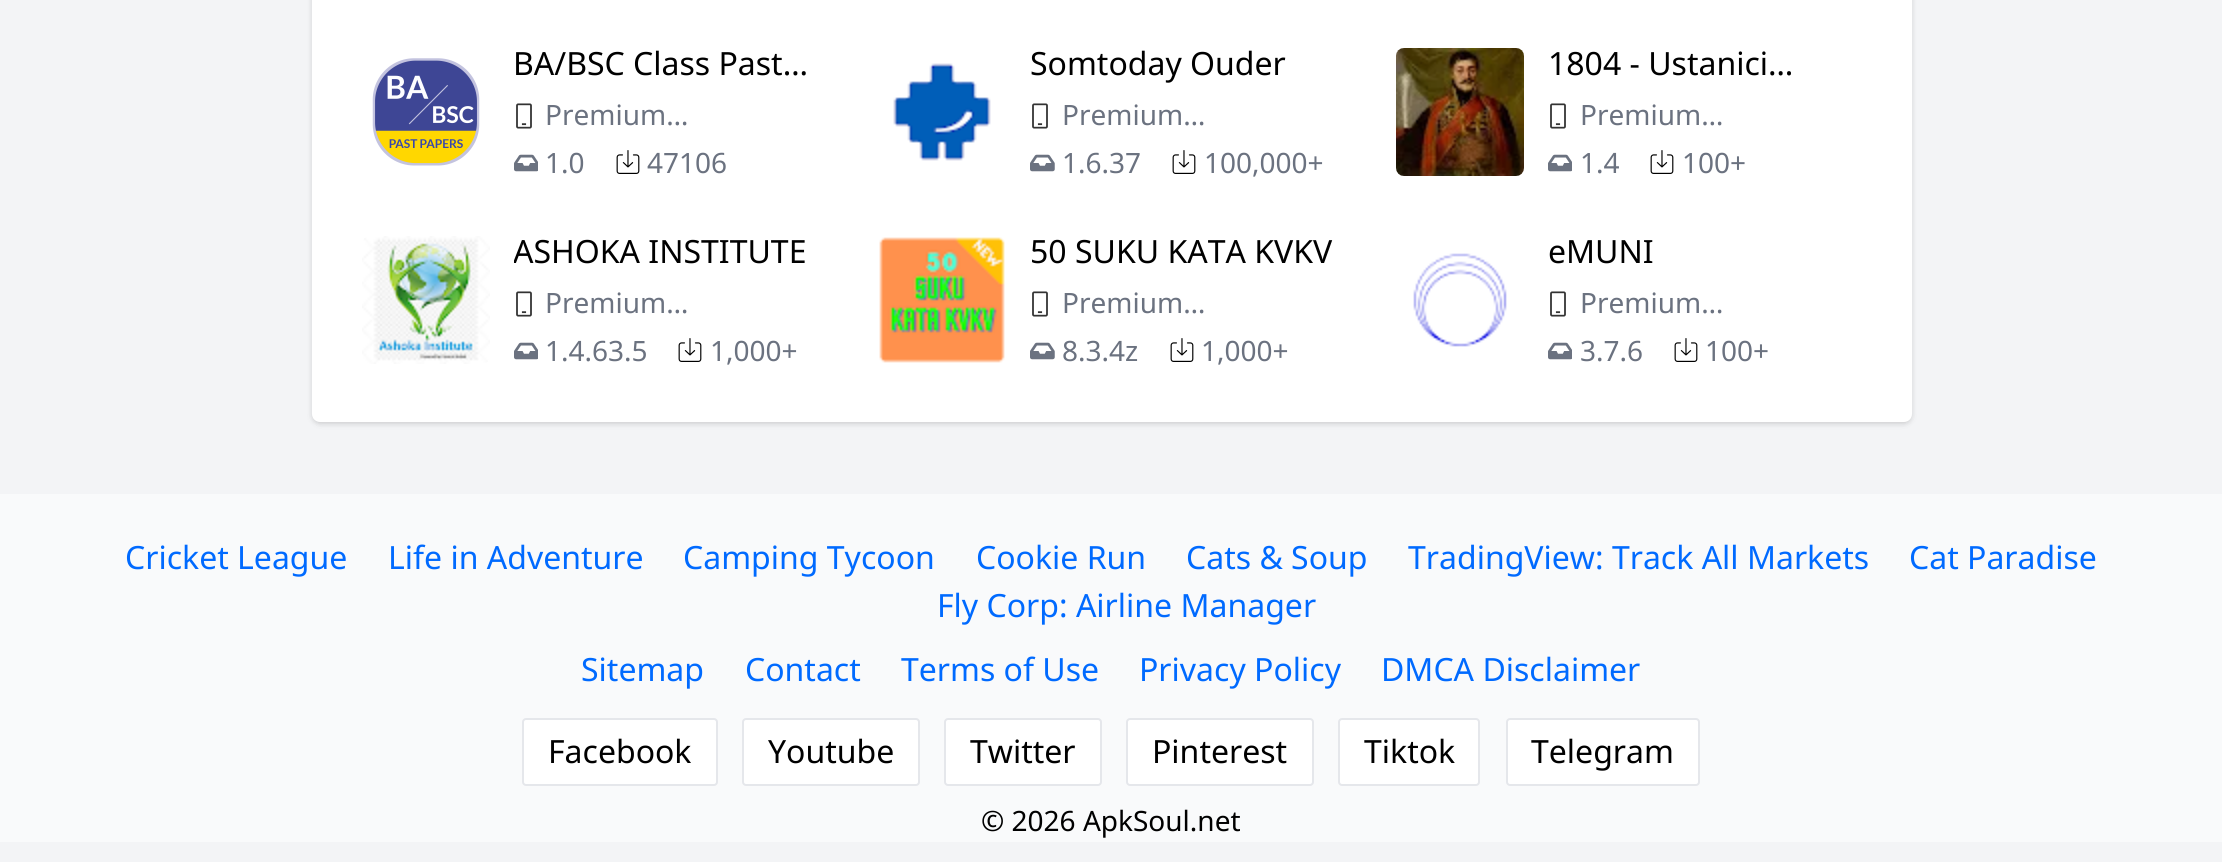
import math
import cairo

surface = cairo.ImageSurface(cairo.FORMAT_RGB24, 2222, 862)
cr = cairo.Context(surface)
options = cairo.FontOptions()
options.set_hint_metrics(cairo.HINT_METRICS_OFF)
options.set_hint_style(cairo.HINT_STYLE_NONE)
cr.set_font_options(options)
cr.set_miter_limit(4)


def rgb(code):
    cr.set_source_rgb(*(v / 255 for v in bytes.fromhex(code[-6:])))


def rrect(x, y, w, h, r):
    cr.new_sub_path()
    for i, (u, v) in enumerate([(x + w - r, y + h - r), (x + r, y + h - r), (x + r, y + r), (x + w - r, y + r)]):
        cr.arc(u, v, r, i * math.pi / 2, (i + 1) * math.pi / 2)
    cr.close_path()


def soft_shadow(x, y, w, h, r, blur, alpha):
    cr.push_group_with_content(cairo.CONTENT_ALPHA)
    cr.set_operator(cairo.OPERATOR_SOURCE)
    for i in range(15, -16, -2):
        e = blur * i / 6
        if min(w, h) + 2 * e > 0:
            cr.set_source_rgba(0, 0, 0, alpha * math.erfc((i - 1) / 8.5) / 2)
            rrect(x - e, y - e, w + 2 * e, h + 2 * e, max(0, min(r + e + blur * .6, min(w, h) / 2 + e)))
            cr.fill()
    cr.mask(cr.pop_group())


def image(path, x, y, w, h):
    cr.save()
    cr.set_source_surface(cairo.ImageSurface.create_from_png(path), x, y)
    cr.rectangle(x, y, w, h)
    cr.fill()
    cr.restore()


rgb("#f3f4f6")
cr.paint()
rgb("#000000")
soft_shadow(312, -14, 1600, 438, 8, 2, 0.06)
soft_shadow(312, -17, 1600, 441, 8, 3, 0.1)
rgb("#ffffff")
rrect(312, -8, 1600, 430, 8)
cr.fill()
image("img/1.png", 372, 58, 108, 108)
image("img/2.png", 516, 103, 16, 26)
image("img/3.png", 514, 154, 24, 18)
image("img/4.png", 616, 150, 24, 24)
image("img/5.png", 893, 63, 98, 98)
image("img/2.png", 1032, 103, 16, 26)
image("img/6.png", 1030, 154, 25, 18)
image("img/4.png", 1172, 150, 24, 24)
image("img/7.png", 1396, 48, 128, 128)
image("img/2.png", 1550, 103, 16, 26)
image("img/3.png", 1548, 154, 24, 18)
image("img/4.png", 1650, 150, 24, 24)
image("img/8.png", 362, 236, 128, 128)
image("img/2.png", 516, 291, 16, 26)
image("img/3.png", 514, 342, 24, 18)
image("img/4.png", 678, 338, 24, 24)
image("img/9.png", 879, 237, 126, 126)
image("img/2.png", 1032, 291, 16, 26)
image("img/6.png", 1030, 342, 25, 18)
image("img/4.png", 1170, 338, 24, 24)
image("img/10.png", 1413, 253, 94, 94)
image("img/2.png", 1550, 291, 16, 26)
image("img/3.png", 1548, 342, 24, 18)
image("img/4.png", 1674, 338, 24, 24)
rgb("#f9fafb")
cr.rectangle(0, 494, 2222, 348)
cr.fill()
rgb("#ffffff")
rrect(523, 719, 194, 66, 3)
cr.fill_preserve()
rgb("#e5e7eb")
cr.stroke()
rgb("#ffffff")
rrect(743, 719, 176, 66, 3)
cr.fill_preserve()
rgb("#e5e7eb")
cr.stroke()
rgb("#ffffff")
rrect(945, 719, 156, 66, 3)
cr.fill_preserve()
rgb("#e5e7eb")
cr.stroke()
rgb("#ffffff")
rrect(1127, 719, 186, 66, 3)
cr.fill_preserve()
rgb("#e5e7eb")
cr.stroke()
rgb("#ffffff")
rrect(1339, 719, 140, 66, 3)
cr.fill_preserve()
rgb("#e5e7eb")
cr.stroke()
rgb("#ffffff")
rrect(1507, 719, 192, 66, 3)
cr.fill_preserve()
rgb("#e5e7eb")
cr.stroke()
cr.select_font_face("Noto Sans")
cr.set_font_size(32)
rgb("#000000")
cr.move_to(513, 75)
cr.show_text("BA/BSC Class Past…")
cr.set_font_size(28)
rgb("#6b7280")
for x, y, s in [
    (545, 125, "Premium…"),
    (545, 173, "1.0"),
    (647, 173, "47106"),
]:
    cr.move_to(x, y)
    cr.show_text(s)
cr.set_font_size(32)
rgb("#000000")
cr.move_to(1030, 75)
cr.show_text("Somtoday Ouder")
cr.set_font_size(28)
rgb("#6b7280")
for x, y, s in [
    (1062, 125, "Premium…"),
    (1062, 173, "1.6.37"),
    (1204, 173, "100,000+"),
]:
    cr.move_to(x, y)
    cr.show_text(s)
cr.set_font_size(32)
rgb("#000000")
cr.move_to(1548, 75)
cr.show_text("1804 - Ustanici…")
cr.set_font_size(28)
rgb("#6b7280")
for x, y, s in [
    (1580, 125, "Premium…"),
    (1580, 173, "1.4"),
    (1682, 173, "100+"),
]:
    cr.move_to(x, y)
    cr.show_text(s)
cr.save()
cr.rectangle(514, 228, 312, 48)
cr.clip()
cr.set_font_size(32)
rgb("#000000")
cr.move_to(513, 263)
cr.show_text("ASHOKA INSTITUTE")
cr.restore()
for x, y, s in [
    (545, 313, "Premium…"),
    (545, 361, "1.4.63.5"),
    (710, 361, "1,000+"),
]:
    cr.move_to(x, y)
    cr.show_text(s)
cr.set_font_size(32)
rgb("#000000")
cr.move_to(1030, 263)
cr.show_text("50 SUKU KATA KVKV")
cr.set_font_size(28)
rgb("#6b7280")
for x, y, s in [
    (1062, 313, "Premium…"),
    (1062, 361, "8.3.4z"),
    (1201, 361, "1,000+"),
]:
    cr.move_to(x, y)
    cr.show_text(s)
cr.set_font_size(32)
rgb("#000000")
cr.move_to(1548, 263)
cr.show_text("eMUNI")
cr.set_font_size(28)
rgb("#6b7280")
for x, y, s in [
    (1580, 313, "Premium…"),
    (1580, 361, "3.7.6"),
    (1705, 361, "100+"),
]:
    cr.move_to(x, y)
    cr.show_text(s)
cr.set_font_size(32)
rgb("#006aff")
for x, y, s in [
    (125, 569, "Cricket League"),
    (388, 569, "Life in Adventure"),
    (683, 569, "Camping Tycoon"),
    (976, 569, "Cookie Run"),
    (1186, 569, "Cats & Soup"),
    (1408, 569, "TradingView: Track All Markets"),
    (1909, 569, "Cat Paradise"),
    (937, 617, "Fly Corp: Airline Manager"),
    (581, 681, "Sitemap"),
    (745, 681, "Contact"),
    (901, 681, "Terms of Use"),
    (1139, 681, "Privacy Policy"),
    (1381, 681, "DMCA Disclaimer"),
]:
    cr.move_to(x, y)
    cr.show_text(s)
rgb("#000000")
for x, y, s in [
    (548, 763, "Facebook"),
    (768, 763, "Youtube"),
    (970, 763, "Twitter"),
    (1152, 763, "Pinterest"),
    (1364, 763, "Tiktok"),
    (1531, 763, "Telegram"),
]:
    cr.move_to(x, y)
    cr.show_text(s)
cr.set_font_size(28)
cr.move_to(981, 831)
cr.show_text("© 2026 ApkSoul.net")
surface.write_to_png("page.png")
